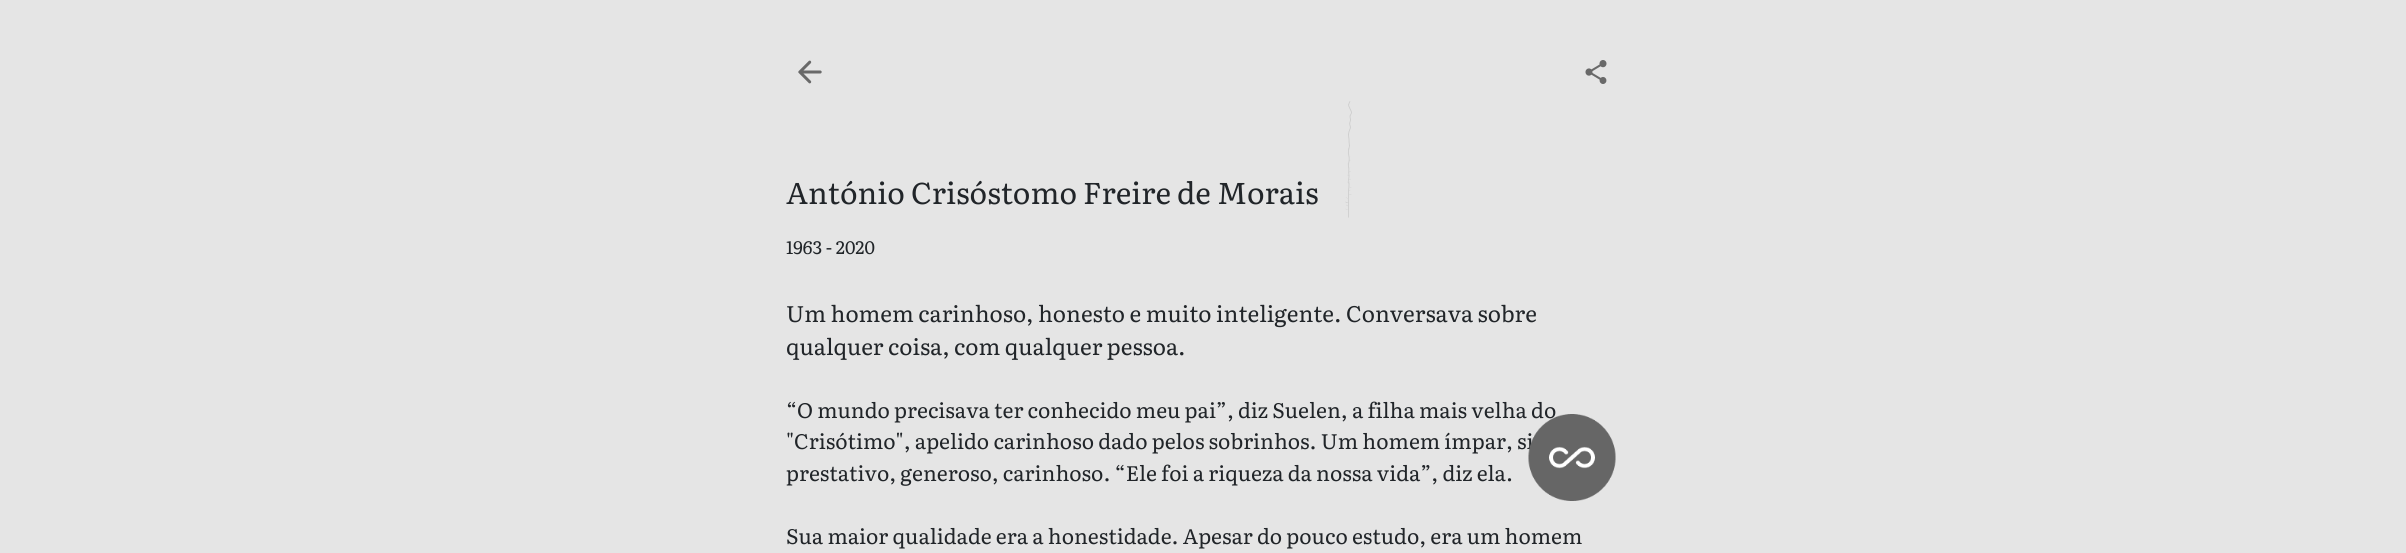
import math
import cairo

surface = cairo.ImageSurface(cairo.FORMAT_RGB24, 2406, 553)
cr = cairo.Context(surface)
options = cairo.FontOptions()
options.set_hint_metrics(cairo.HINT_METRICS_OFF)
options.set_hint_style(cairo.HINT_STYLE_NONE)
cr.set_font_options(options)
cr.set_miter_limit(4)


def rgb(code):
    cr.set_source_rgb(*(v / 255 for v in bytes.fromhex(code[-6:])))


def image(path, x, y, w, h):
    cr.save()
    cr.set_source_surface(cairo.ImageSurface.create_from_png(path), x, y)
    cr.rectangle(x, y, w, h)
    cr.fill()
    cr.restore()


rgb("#e5e5e5")
cr.paint()
image("img/1.png", 798, 60, 24, 24)
image("img/2.png", 1585, 60, 22, 24)
image("img/3.png", 1345, 101, 7, 117)
cr.select_font_face("Literata")
cr.set_font_size(30)
rgb("#212529")
cr.move_to(786, 204)
cr.show_text("António Crisóstomo Freire de Morais")
cr.set_font_size(18)
cr.move_to(786, 254)
cr.show_text("1963 - 2020")
cr.set_font_size(22.5)
cr.move_to(786, 322)
cr.show_text("Um homem carinhoso, honesto e muito inteligente. Conversava sobre")
cr.move_to(786, 355)
cr.show_text("qualquer coisa, com qualquer pessoa.")
cr.set_font_size(21)
for x, y, s in [
    (786, 418, "“O mundo precisava ter conhecido meu pai”, diz Suelen, a filha mais velha do"),
    (786, 449, "\"Crisótimo\", apelido carinhoso dado pelos sobrinhos. Um homem ímpar, si"),
    (786, 481, "prestativo, generoso, carinhoso. “Ele foi a riqueza da nossa vida”, diz ela."),
    (786, 544, "Sua maior qualidade era a honestidade. Apesar do pouco estudo, era um homem"),
]:
    cr.move_to(x, y)
    cr.show_text(s)
image("img/4.png", 1528, 414, 88, 87)
surface.write_to_png("page.png")
